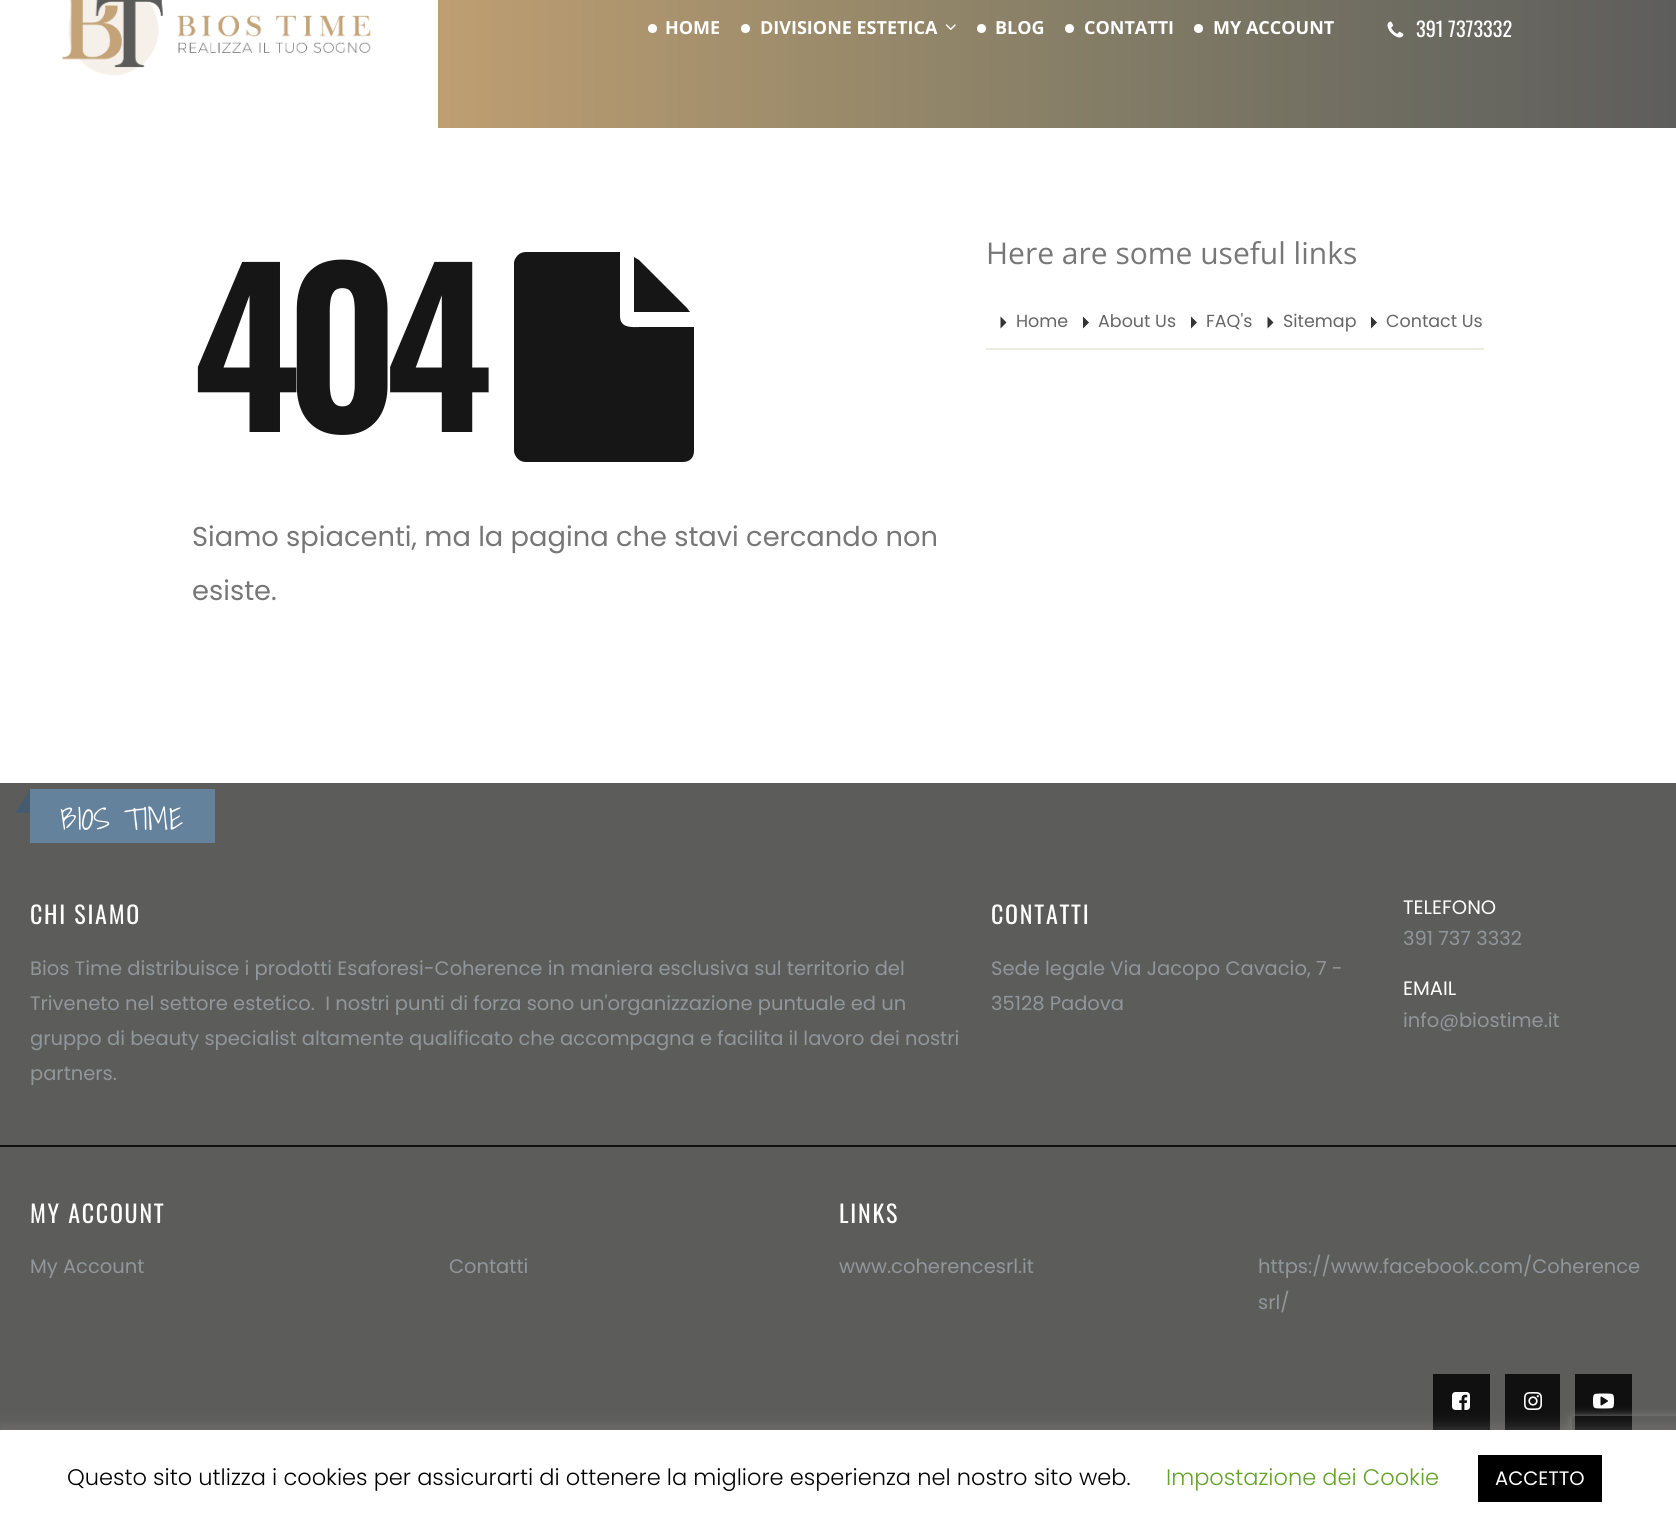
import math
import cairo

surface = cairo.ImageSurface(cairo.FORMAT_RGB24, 1676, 1526)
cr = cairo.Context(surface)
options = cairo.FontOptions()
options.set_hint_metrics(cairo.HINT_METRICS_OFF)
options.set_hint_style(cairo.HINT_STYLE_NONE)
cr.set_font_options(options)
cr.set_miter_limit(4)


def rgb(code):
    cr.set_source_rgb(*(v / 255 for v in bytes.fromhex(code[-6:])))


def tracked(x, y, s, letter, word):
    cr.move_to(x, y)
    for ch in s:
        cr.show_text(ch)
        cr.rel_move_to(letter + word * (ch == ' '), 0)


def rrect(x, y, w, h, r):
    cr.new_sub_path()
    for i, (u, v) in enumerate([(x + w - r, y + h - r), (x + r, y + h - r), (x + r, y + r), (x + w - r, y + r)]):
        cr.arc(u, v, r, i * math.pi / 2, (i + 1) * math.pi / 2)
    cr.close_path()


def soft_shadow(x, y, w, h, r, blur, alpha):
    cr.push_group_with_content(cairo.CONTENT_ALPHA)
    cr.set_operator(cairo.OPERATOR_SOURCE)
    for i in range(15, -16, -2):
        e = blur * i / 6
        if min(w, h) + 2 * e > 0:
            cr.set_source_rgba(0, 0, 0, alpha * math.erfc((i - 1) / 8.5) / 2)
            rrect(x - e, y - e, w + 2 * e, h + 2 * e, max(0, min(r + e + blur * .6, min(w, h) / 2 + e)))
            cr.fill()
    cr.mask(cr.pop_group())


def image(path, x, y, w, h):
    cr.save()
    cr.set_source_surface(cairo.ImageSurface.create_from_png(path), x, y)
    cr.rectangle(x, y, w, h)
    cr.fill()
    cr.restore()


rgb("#ffffff")
cr.paint()
image("img/1.png", 62, 0, 309, 76)
gradient = cairo.LinearGradient(438, 27, 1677, 27)
gradient.add_color_stop_rgba(0, 0.749, 0.62, 0.447, 1)
gradient.add_color_stop_rgba(0.25, 0.635, 0.561, 0.424, 1)
gradient.add_color_stop_rgba(0.5, 0.529, 0.498, 0.404, 1)
gradient.add_color_stop_rgba(0.75, 0.439, 0.431, 0.384, 1)
gradient.add_color_stop_rgba(1, 0.365, 0.365, 0.361, 1)
cr.set_source(gradient)
cr.rectangle(438, 0, 1238, 128)
cr.fill()
rgb("#ffffff")
cr.arc(652.5, 28.5, 4.5, 0, 2 * math.pi)
cr.fill()
cr.arc(745.5, 28.5, 4.5, 0, 2 * math.pi)
cr.fill()
image("img/2.png", 945, 24, 11, 6)
cr.arc(981.5, 28.5, 4.5, 0, 2 * math.pi)
cr.fill()
cr.arc(1069.5, 28.5, 4.5, 0, 2 * math.pi)
cr.fill()
cr.arc(1198.5, 28.5, 4.5, 0, 2 * math.pi)
cr.fill()
image("img/3.png", 1387, 21, 17, 17)
rgb("#161616")
cr.new_path()
cr.move_to(634, 312)
cr.line_to(634, 257)
cr.line_to(639, 260)
cr.line_to(687, 308)
cr.line_to(690, 312)
cr.close_path()
cr.move_to(620, 316)
cr.curve_to(620, 329, 633, 327, 641, 327)
cr.line_to(694, 327)
cr.line_to(694, 451)
cr.curve_to(694, 454, 693, 457, 691, 459)
cr.curve_to(689, 461, 686, 462, 683, 462)
cr.line_to(526, 462)
cr.curve_to(523, 462, 520, 461, 518, 459)
cr.curve_to(516, 457, 514, 454, 514, 451)
cr.line_to(514, 263)
cr.curve_to(514, 260, 516, 257, 518, 255)
cr.curve_to(520, 253, 523, 252, 526, 252)
cr.line_to(620, 252)
cr.close_path()
cr.fill()
rgb("#ededde")
cr.rectangle(986, 348, 498, 2)
cr.fill()
rgb("#333333")
cr.new_path()
cr.move_to(1000.5, 328.5)
cr.line_to(1000.5, 316.5)
cr.line_to(1006.5, 322.5)
cr.close_path()
cr.fill()
cr.new_path()
cr.move_to(1083, 328.5)
cr.line_to(1083, 316.5)
cr.line_to(1089, 322.5)
cr.close_path()
cr.fill()
cr.new_path()
cr.move_to(1191, 328.5)
cr.line_to(1191, 316.5)
cr.line_to(1197, 322.5)
cr.close_path()
cr.fill()
cr.new_path()
cr.move_to(1267.5, 328.5)
cr.line_to(1267.5, 316.5)
cr.line_to(1273.5, 322.5)
cr.close_path()
cr.fill()
cr.new_path()
cr.move_to(1371, 328.5)
cr.line_to(1371, 316.5)
cr.line_to(1377, 322.5)
cr.close_path()
cr.fill()
rgb("#5c5c5b")
cr.rectangle(0, 783, 1676, 647)
cr.fill()
rgb("#65829d")
cr.rectangle(30, 789, 185, 54)
cr.fill()
rgb("#475b6f")
cr.new_path()
cr.move_to(30, 789)
cr.line_to(30, 813)
cr.line_to(15, 813)
cr.close_path()
cr.fill()
rgb("#101010")
cr.rectangle(0, 1145, 1676, 2)
cr.fill()
cr.rectangle(1433, 1374, 57, 56)
cr.fill()
image("img/4.png", 1452, 1392, 18, 18)
cr.rectangle(1505, 1374, 55, 56)
cr.fill()
image("img/5.png", 1524, 1392, 18, 18)
cr.rectangle(1575, 1374, 57, 56)
cr.fill()
image("img/6.png", 1593, 1393, 21, 16)
rgb("#acabab")
soft_shadow(0, 1428, 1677, 98, 0, 7.5, 0.3)
cr.save()
cr.set_fill_rule(cairo.FILL_RULE_EVEN_ODD)
cr.new_path()
cr.move_to(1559, 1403)
cr.line_to(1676, 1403)
cr.line_to(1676, 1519)
cr.line_to(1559, 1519)
cr.close_path()
cr.move_to(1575, 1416)
cr.line_to(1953, 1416)
cr.curve_to(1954.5, 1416, 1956, 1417.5, 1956, 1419)
cr.line_to(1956, 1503)
cr.curve_to(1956, 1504.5, 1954.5, 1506, 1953, 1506)
cr.line_to(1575, 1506)
cr.curve_to(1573.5, 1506, 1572, 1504.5, 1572, 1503)
cr.line_to(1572, 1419)
cr.curve_to(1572, 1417.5, 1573.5, 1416, 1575, 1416)
cr.close_path()
cr.clip()
rgb("#808080")
soft_shadow(1572, 1416, 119, 90, 3, 4, 1)
cr.restore()
rgb("#ffffff")
cr.rectangle(0, 1430, 1676, 96)
cr.fill()
rgb("#000000")
cr.rectangle(1478, 1455, 124, 47)
cr.fill()
cr.select_font_face("Open Sans", cairo.FONT_SLANT_NORMAL, cairo.FONT_WEIGHT_BOLD)
cr.set_font_size(18)
rgb("#ffffff")
for x, y, s in [
    (665, 34, "HOME"),
    (760, 34, "DIVISIONE ESTETICA"),
    (995, 34, "BLOG"),
    (1084, 34, "CONTATTI"),
    (1213, 34, "MY ACCOUNT"),
]:
    cr.move_to(x, y)
    cr.show_text(s)
cr.select_font_face("Oswald")
cr.set_font_size(20.25)
cr.move_to(1416, 37)
cr.show_text("391 7373332")
cr.select_font_face("Oswald SemiBold")
cr.set_font_size(210)
rgb("#161616")
tracked(192, 432, "404", -15, 0)
cr.select_font_face("Poppins")
cr.set_font_size(27.3)
rgb("#777777")
cr.move_to(192, 546)
cr.show_text("Siamo spiacenti, ma la pagina che stavi cercando non")
cr.move_to(192, 600)
cr.show_text("esiste.")
cr.select_font_face("Open Sans")
cr.set_font_size(30)
cr.move_to(986, 264)
cr.show_text("Here are some useful links")
cr.select_font_face("Poppins")
cr.set_font_size(17.5)
rgb("#666666")
for x, y, s in [
    (1016, 327, "Home"),
    (1098, 327, "About Us"),
    (1206, 327, "FAQ's"),
    (1283, 327, "Sitemap"),
    (1386, 327, "Contact Us"),
]:
    cr.move_to(x, y)
    cr.show_text(s)
cr.select_font_face("Shadows Into Light Light")
cr.set_font_size(31)
rgb("#ffffff")
cr.move_to(60, 830)
cr.show_text("BIOS TIME")
cr.select_font_face("Oswald")
cr.set_font_size(24)
tracked(30, 924, "CHI SIAMO", 1.75, 0)
cr.select_font_face("Poppins")
cr.set_font_size(19.5)
rgb("#90969a")
for x, y, s in [
    (30, 975, "Bios Time distribuisce i prodotti Esaforesi-Coherence in maniera esclusiva sul territorio del"),
    (30, 1010, "Triveneto nel settore estetico.  I nostri punti di forza sono un'organizzazione puntuale ed un"),
    (30, 1045, "gruppo di beauty specialist altamente qualificato che accompagna e facilita il lavoro dei nostri"),
    (30, 1080, "partners."),
]:
    cr.move_to(x, y)
    cr.show_text(s)
cr.select_font_face("Oswald")
cr.set_font_size(24)
rgb("#ffffff")
tracked(991, 924, "CONTATTI", 1.75, 0)
cr.select_font_face("Poppins")
cr.set_font_size(19.5)
rgb("#90969a")
cr.move_to(991, 975)
cr.show_text("Sede legale Via Jacopo Cavacio, 7 -")
cr.move_to(991, 1010)
cr.show_text("35128 Padova")
rgb("#ffffff")
cr.move_to(1403, 914)
cr.show_text("TELEFONO")
rgb("#90969a")
cr.move_to(1403, 945)
cr.show_text("391 737 3332")
rgb("#ffffff")
cr.move_to(1403, 995)
cr.show_text("EMAIL")
rgb("#90969a")
cr.move_to(1403, 1027)
cr.show_text("info@biostime.it")
cr.select_font_face("Oswald")
cr.set_font_size(24)
rgb("#ffffff")
tracked(30, 1223, "MY ACCOUNT", 1.75, 0)
cr.select_font_face("Poppins")
cr.set_font_size(19.5)
rgb("#90969a")
cr.move_to(30, 1273)
cr.show_text("My Account")
cr.move_to(449, 1273)
cr.show_text("Contatti")
cr.select_font_face("Oswald")
cr.set_font_size(24)
rgb("#ffffff")
tracked(839, 1223, "LINKS", 1.75, 0)
cr.select_font_face("Poppins")
cr.set_font_size(19.5)
rgb("#90969a")
for x, y, s in [
    (839, 1273, "www.coherencesrl.it"),
    (1258, 1273, "https://www.facebook.com/Coherence"),
    (1258, 1309, "srl/"),
]:
    cr.move_to(x, y)
    cr.show_text(s)
cr.select_font_face("Poppins Light")
cr.set_font_size(22.5)
rgb("#000000")
cr.move_to(67, 1485)
cr.show_text("Questo sito utlizza i cookies per assicurarti di ottenere la migliore esperienza nel nostro sito web.")
rgb("#62a329")
cr.move_to(1166, 1485)
cr.show_text("Impostazione dei Cookie")
cr.select_font_face("Poppins")
cr.set_font_size(19.5)
rgb("#ffffff")
cr.move_to(1495, 1485)
cr.show_text("ACCETTO")
surface.write_to_png("page.png")
